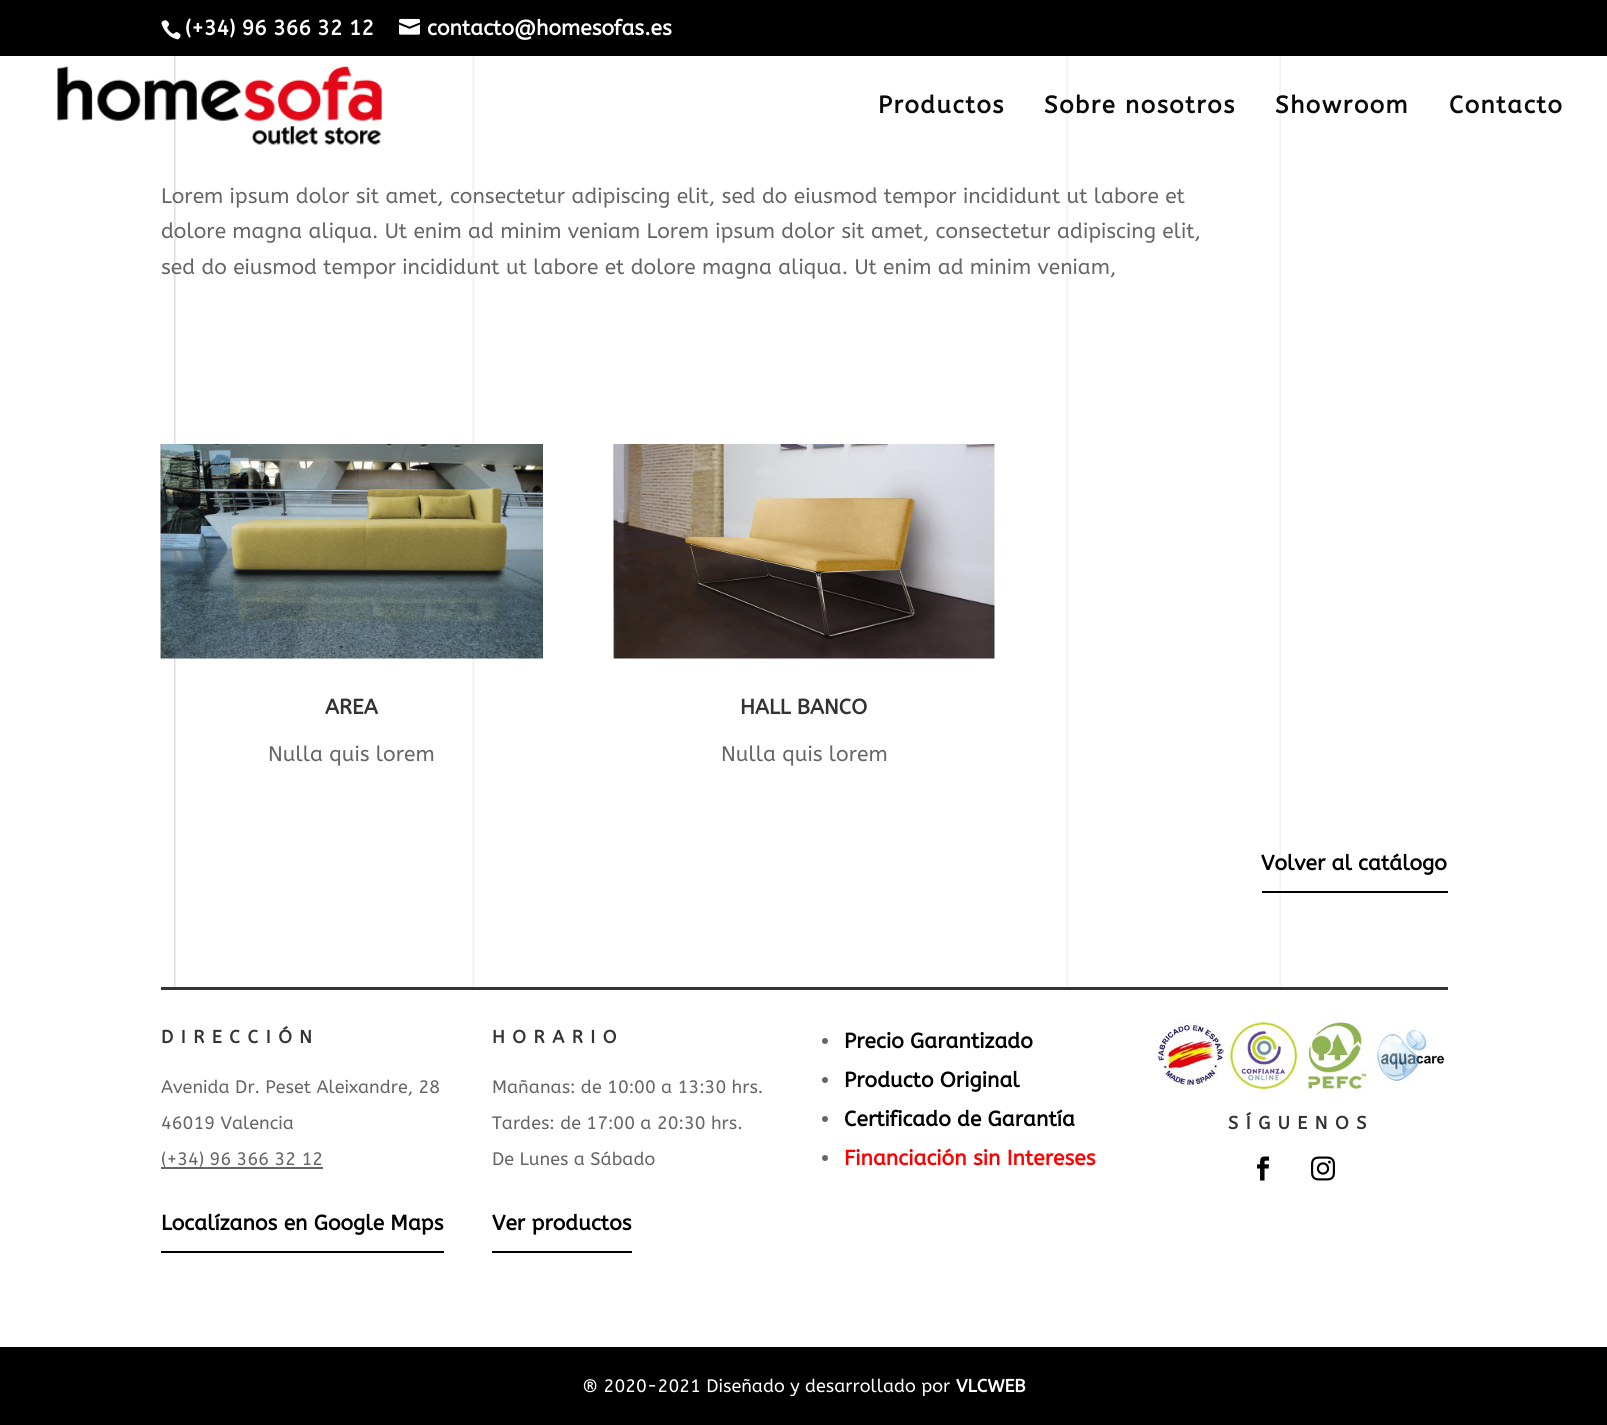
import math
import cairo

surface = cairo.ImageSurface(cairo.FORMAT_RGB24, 1607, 1425)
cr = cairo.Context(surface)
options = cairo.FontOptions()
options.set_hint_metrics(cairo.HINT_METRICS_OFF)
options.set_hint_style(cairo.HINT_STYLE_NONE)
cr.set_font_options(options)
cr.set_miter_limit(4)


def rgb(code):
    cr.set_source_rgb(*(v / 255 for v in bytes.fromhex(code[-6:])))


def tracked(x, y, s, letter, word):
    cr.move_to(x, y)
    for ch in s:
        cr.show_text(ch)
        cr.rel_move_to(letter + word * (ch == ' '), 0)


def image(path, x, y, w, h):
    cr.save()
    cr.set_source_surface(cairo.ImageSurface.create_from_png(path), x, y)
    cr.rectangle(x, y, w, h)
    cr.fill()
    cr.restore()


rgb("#ffffff")
cr.paint()
rgb("#000000")
cr.rectangle(0, 0, 1607, 56)
cr.fill()
image("img/1.png", 161, 20, 20, 20)
image("img/2.png", 399, 18, 21, 17)
image("img/4.png", 173, 56, 1108, 292)
image("img/3.png", 57, 66, 325, 79)
image("img/5.png", 173, 348, 1108, 639)
image("img/6.png", 160, 444, 383, 215)
image("img/7.png", 613, 444, 382, 215)
cr.new_path()
cr.move_to(1262, 891)
cr.line_to(1262, 893)
cr.line_to(1448, 893)
cr.line_to(1448, 839)
cr.line_to(1448, 891)
cr.close_path()
cr.fill()
for x, y, w, h, color in [
    (161, 987, 1287, 3, "#333333"),
    (161, 1167, 162, 2, "#666666"),
    (161, 1251, 283, 2, "#000000"),
]:
    rgb(color)
    cr.rectangle(x, y, w, h)
    cr.fill()
cr.new_path()
cr.move_to(492, 1251)
cr.line_to(492, 1253)
cr.line_to(632, 1253)
cr.line_to(632, 1199)
cr.line_to(632, 1251)
cr.close_path()
cr.fill()
rgb("#666666")
cr.arc(825, 1041, 3, 0, 2 * math.pi)
cr.fill()
cr.arc(825, 1080, 3, 0, 2 * math.pi)
cr.fill()
cr.arc(825, 1119, 3, 0, 2 * math.pi)
cr.fill()
cr.arc(825, 1158, 3, 0, 2 * math.pi)
cr.fill()
image("img/8.png", 1155, 1021, 70, 65)
image("img/9.png", 1227, 1021, 73, 68)
image("img/10.png", 1306, 1021, 64, 68)
image("img/11.png", 1374, 1029, 71, 56)
image("img/12.png", 1257, 1156, 13, 25)
image("img/13.png", 1311, 1156, 24, 25)
rgb("#000000")
cr.rectangle(0, 1347, 1607, 78)
cr.fill()
cr.select_font_face("ABeeZee", cairo.FONT_SLANT_NORMAL, cairo.FONT_WEIGHT_BOLD)
cr.set_font_size(21)
rgb("#ffffff")
cr.move_to(185, 35)
cr.show_text("(+34) 96 366 32 12")
cr.move_to(427, 35)
cr.show_text("contacto@homesofas.es")
cr.set_font_size(24)
rgb("#0a0a0a")
for x, y, s in [
    (878, 113, "Productos"),
    (1044, 113, "Sobre nosotros"),
    (1275, 113, "Showroom"),
    (1449, 113, "Contacto"),
]:
    tracked(x, y, s, 1.5, 0)
cr.select_font_face("ABeeZee")
cr.set_font_size(21)
rgb("#666666")
for x, y, s in [
    (161, 203, "Lorem ipsum dolor sit amet, consectetur adipiscing elit, sed do eiusmod tempor incididunt ut labore et"),
    (161, 238, "dolore magna aliqua. Ut enim ad minim veniam Lorem ipsum dolor sit amet, consectetur adipiscing elit,"),
    (161, 274, "sed do eiusmod tempor incididunt ut labore et dolore magna aliqua. Ut enim ad minim veniam,"),
]:
    cr.move_to(x, y)
    cr.show_text(s)
cr.select_font_face("ABeeZee", cairo.FONT_SLANT_NORMAL, cairo.FONT_WEIGHT_BOLD)
rgb("#333333")
cr.move_to(325, 714)
cr.show_text("AREA")
cr.select_font_face("ABeeZee")
rgb("#666666")
cr.move_to(268, 761)
cr.show_text("Nulla quis lorem")
cr.select_font_face("ABeeZee", cairo.FONT_SLANT_NORMAL, cairo.FONT_WEIGHT_BOLD)
rgb("#333333")
cr.move_to(740, 714)
cr.show_text("HALL BANCO")
cr.select_font_face("ABeeZee")
rgb("#666666")
cr.move_to(721, 761)
cr.show_text("Nulla quis lorem")
cr.select_font_face("ABeeZee", cairo.FONT_SLANT_NORMAL, cairo.FONT_WEIGHT_BOLD)
rgb("#000000")
cr.move_to(1261, 870)
cr.show_text("Volver al catálogo")
cr.set_font_size(18)
rgb("#333333")
tracked(161, 1043, "DIRECCIÓN", 7.5, 0)
cr.select_font_face("ABeeZee")
rgb("#666666")
for x, y, s in [
    (161, 1093, "Avenida Dr. Peset Aleixandre, 28"),
    (161, 1129, "46019 Valencia"),
    (161, 1165, "(+34) 96 366 32 12"),
]:
    cr.move_to(x, y)
    cr.show_text(s)
cr.select_font_face("ABeeZee", cairo.FONT_SLANT_NORMAL, cairo.FONT_WEIGHT_BOLD)
cr.set_font_size(21)
rgb("#000000")
cr.move_to(161, 1230)
cr.show_text("Localízanos en Google Maps")
cr.set_font_size(18)
rgb("#333333")
tracked(492, 1043, "HORARIO", 7.5, 0)
cr.select_font_face("ABeeZee")
rgb("#666666")
for x, y, s in [
    (492, 1093, "Mañanas: de 10:00 a 13:30 hrs."),
    (492, 1129, "Tardes: de 17:00 a 20:30 hrs."),
    (492, 1165, "De Lunes a Sábado"),
]:
    cr.move_to(x, y)
    cr.show_text(s)
cr.select_font_face("ABeeZee", cairo.FONT_SLANT_NORMAL, cairo.FONT_WEIGHT_BOLD)
cr.set_font_size(21)
rgb("#000000")
for x, y, s in [
    (492, 1230, "Ver productos"),
    (844, 1048, "Precio Garantizado"),
    (844, 1087, "Producto Original"),
    (844, 1126, "Certificado de Garantía"),
]:
    cr.move_to(x, y)
    cr.show_text(s)
rgb("#ff0000")
cr.move_to(844, 1165)
cr.show_text("Financiación sin Intereses")
cr.set_font_size(18)
rgb("#333333")
tracked(1228, 1129, "SÍGUENOS", 7.5, 0)
cr.select_font_face("ABeeZee")
rgb("#ffffff")
cr.move_to(582, 1392)
cr.show_text("® 2020-2021 Diseñado y desarrollado por")
cr.select_font_face("ABeeZee", cairo.FONT_SLANT_NORMAL, cairo.FONT_WEIGHT_BOLD)
cr.move_to(956, 1392)
cr.show_text("VLCWEB")
surface.write_to_png("page.png")
